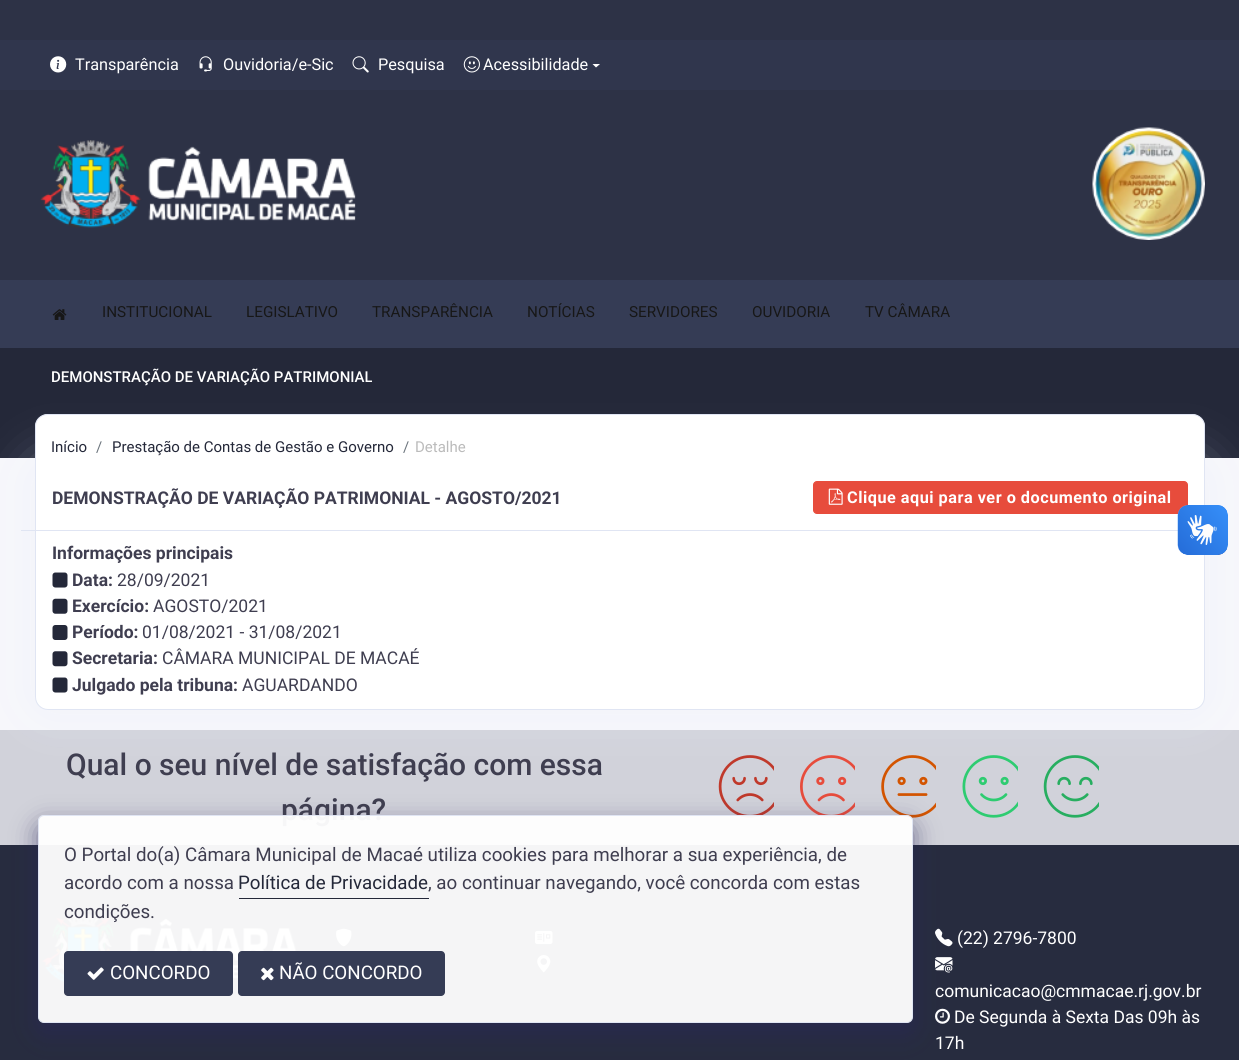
import math
import cairo

surface = cairo.ImageSurface(cairo.FORMAT_RGB24, 1239, 1060)
cr = cairo.Context(surface)
options = cairo.FontOptions()
options.set_hint_metrics(cairo.HINT_METRICS_OFF)
options.set_hint_style(cairo.HINT_STYLE_NONE)
cr.set_font_options(options)
cr.set_miter_limit(4)


def rgb(code):
    cr.set_source_rgb(*(v / 255 for v in bytes.fromhex(code[-6:])))


def tracked(x, y, s, letter, word):
    cr.move_to(x, y)
    for ch in s:
        cr.show_text(ch)
        cr.rel_move_to(letter + word * (ch == ' '), 0)


def rrect(x, y, w, h, r):
    cr.new_sub_path()
    for i, (u, v) in enumerate([(x + w - r, y + h - r), (x + r, y + h - r), (x + r, y + r), (x + w - r, y + r)]):
        cr.arc(u, v, r, i * math.pi / 2, (i + 1) * math.pi / 2)
    cr.close_path()


def soft_shadow(x, y, w, h, r, blur, alpha):
    cr.push_group_with_content(cairo.CONTENT_ALPHA)
    cr.set_operator(cairo.OPERATOR_SOURCE)
    for i in range(15, -16, -2):
        e = blur * i / 6
        if min(w, h) + 2 * e > 0:
            cr.set_source_rgba(0, 0, 0, alpha * math.erfc((i - 1) / 8.5) / 2)
            rrect(x - e, y - e, w + 2 * e, h + 2 * e, max(0, min(r + e + blur * .6, min(w, h) / 2 + e)))
            cr.fill()
    cr.mask(cr.pop_group())


def image(path, x, y, w, h):
    cr.save()
    cr.set_source_surface(cairo.ImageSurface.create_from_png(path), x, y)
    cr.rectangle(x, y, w, h)
    cr.fill()
    cr.restore()


rgb("#f7f7fb")
cr.paint()
rgb("#2d3246")
cr.rectangle(0, 0, 1239, 280)
cr.fill()
rgb("#30364d")
cr.rectangle(0, 40, 1239, 50)
cr.fill()
image("img/1.png", 50, 56, 17, 17)
image("img/2.png", 199, 56, 13, 16)
image("img/3.png", 352, 56, 17, 17)
image("img/4.png", 463, 56, 17, 17)
rgb("#ffffff")
cr.new_path()
cr.move_to(592.5, 64)
cr.line_to(600, 64)
cr.line_to(596, 67.5)
cr.close_path()
cr.fill()
image("img/5.png", 40, 140, 316, 88)
image("img/6.png", 1092, 127, 113, 113)
rgb("#353c55")
cr.rectangle(0, 280, 1239, 68)
cr.fill()
image("img/7.png", 52, 309, 15, 11)
rgb("#242839")
cr.rectangle(0, 348, 1239, 110)
cr.fill()
rgb("#d1d2da")
cr.rectangle(0, 730, 1239, 115)
cr.fill()
rgb("#eaeef9")
soft_shadow(35, 465, 1170, 245, 13, 25, 0.5)
rgb("#ffffff")
rrect(35.5, 465.5, 1169, 244, 12.5)
cr.fill_preserve()
rgb("#e0e5f3")
cr.set_line_width(1)
cr.stroke()
rgb("#ffffff")
cr.new_path()
cr.move_to(48, 414)
cr.line_to(1192, 414)
cr.curve_to(1199, 414, 1205, 420, 1205, 427)
cr.line_to(1205, 478)
cr.line_to(35, 478)
cr.line_to(35, 427)
cr.curve_to(35, 420, 41, 414, 48, 414)
cr.close_path()
cr.fill()
rgb("#e0e5f3")
cr.set_fill_rule(cairo.FILL_RULE_EVEN_ODD)
cr.new_path()
cr.move_to(48, 414)
cr.line_to(1192, 414)
cr.curve_to(1199, 414, 1205, 419, 1205, 426)
cr.line_to(1205, 478)
cr.line_to(35, 478)
cr.line_to(35, 426)
cr.curve_to(35, 419, 41, 414, 48, 414)
cr.close_path()
cr.move_to(48, 415)
cr.line_to(1192, 415)
cr.curve_to(1199, 415, 1204, 420, 1204, 426)
cr.line_to(1204, 478)
cr.line_to(36, 478)
cr.line_to(36, 426)
cr.curve_to(36, 420, 41, 415, 48, 415)
cr.close_path()
cr.fill()
cr.rectangle(21, 530, 1157, 1)
cr.fill()
rgb("#e74c3c")
rrect(813.5, 481.5, 374, 32, 3.5)
cr.fill_preserve()
cr.stroke()
image("img/8.png", 828, 488, 15, 17)
image("img/9.png", 52, 572, 16, 16)
image("img/10.png", 52, 598, 16, 16)
image("img/11.png", 52, 625, 16, 15)
image("img/12.png", 52, 651, 16, 16)
image("img/9.png", 52, 677, 16, 16)
image("img/13.png", 1177, 505, 51, 50)
image("img/14.png", 1178, 505, 50, 50)
image("img/15.png", 718, 755, 56, 63)
image("img/16.png", 800, 755, 55, 63)
image("img/17.png", 881, 755, 55, 63)
image("img/18.png", 962, 755, 56, 63)
image("img/19.png", 1043, 755, 56, 63)
rgb("#272c3f")
cr.rectangle(0, 845, 1239, 215)
cr.fill()
image("img/22.png", 41, 913, 256, 70)
image("img/23.png", 336, 928, 16, 19)
image("img/24.png", 535, 930, 18, 15)
image("img/25.png", 537, 955, 14, 18)
image("img/26.png", 935, 928, 18, 19)
image("img/27.png", 935, 957, 18, 16)
image("img/28.png", 935, 1008, 15, 16)
cr.save()
cr.new_path()
cr.move_to(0, 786)
cr.line_to(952, 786)
cr.line_to(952, 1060)
cr.line_to(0, 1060)
cr.close_path()
cr.move_to(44, 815)
cr.line_to(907, 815)
cr.curve_to(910.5, 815, 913, 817.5, 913, 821)
cr.line_to(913, 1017)
cr.curve_to(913, 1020.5, 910.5, 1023, 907, 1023)
cr.line_to(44, 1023)
cr.curve_to(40.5, 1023, 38, 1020.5, 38, 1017)
cr.line_to(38, 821)
cr.curve_to(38, 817.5, 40.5, 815, 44, 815)
cr.close_path()
cr.clip()
rgb("#282559")
soft_shadow(38, 825, 875, 208, 6, 12.5, 0.6)
cr.restore()
cr.select_font_face("Roboto")
cr.set_font_size(16.25)
rgb("#ffffff")
for x, y, s in [
    (75, 70, "Transparência"),
    (223, 70, "Ouvidoria/e-Sic"),
    (378, 70, "Pesquisa"),
    (483, 70, "Acessibilidade"),
]:
    cr.move_to(x, y)
    cr.show_text(s)
cr.set_font_size(15.25)
rgb("#171717")
for x, y, s in [
    (102, 317, "INSTITUCIONAL"),
    (246, 317, "LEGISLATIVO"),
    (372, 317, "TRANSPARÊNCIA"),
    (527, 317, "NOTÍCIAS"),
    (629, 317, "SERVIDORES"),
    (752, 317, "OUVIDORIA"),
    (865, 317, "TV CÂMARA"),
]:
    cr.move_to(x, y)
    cr.show_text(s)
cr.select_font_face("Roboto Medium")
cr.set_font_size(15)
rgb("#ffffff")
cr.move_to(51, 382)
cr.show_text("DEMONSTRAÇÃO DE VARIAÇÃO PATRIMONIAL")
cr.select_font_face("Roboto")
rgb("#242839")
cr.move_to(51, 452)
cr.show_text("Início")
rgb("#6c757d")
cr.move_to(96, 452)
cr.show_text("/")
rgb("#242839")
cr.move_to(112, 452)
cr.show_text("Prestação de Contas de Gestão e Governo")
rgb("#6c757d")
cr.move_to(403, 452)
cr.show_text("/")
rgb("#bbbbbb")
cr.move_to(415, 452)
cr.show_text("Detalhe")
cr.select_font_face("Roboto", cairo.FONT_SLANT_NORMAL, cairo.FONT_WEIGHT_BOLD)
cr.set_font_size(17.5)
rgb("#3f3e50")
cr.move_to(52, 504)
cr.show_text("DEMONSTRAÇÃO DE VARIAÇÃO PATRIMONIAL - AGOSTO/2021")
cr.set_font_size(16.25)
rgb("#ffffff")
tracked(847, 503, "Clique aqui para ver o documento original", 0.5, 0)
cr.set_font_size(17.5)
rgb("#3f3e50")
cr.move_to(52, 559)
cr.show_text("Informações principais")
cr.move_to(72, 586)
cr.show_text("Data:")
cr.select_font_face("Roboto")
cr.move_to(117, 586)
cr.show_text("28/09/2021")
cr.select_font_face("Roboto", cairo.FONT_SLANT_NORMAL, cairo.FONT_WEIGHT_BOLD)
cr.move_to(72, 612)
cr.show_text("Exercício:")
cr.select_font_face("Roboto")
cr.move_to(153, 612)
cr.show_text("AGOSTO/2021")
cr.select_font_face("Roboto", cairo.FONT_SLANT_NORMAL, cairo.FONT_WEIGHT_BOLD)
cr.move_to(72, 638)
cr.show_text("Período:")
cr.select_font_face("Roboto")
cr.move_to(142, 638)
cr.show_text("01/08/2021 - 31/08/2021")
cr.select_font_face("Roboto", cairo.FONT_SLANT_NORMAL, cairo.FONT_WEIGHT_BOLD)
cr.move_to(72, 664)
cr.show_text("Secretaria:")
cr.select_font_face("Roboto")
cr.move_to(162, 664)
cr.show_text("CÂMARA MUNICIPAL DE MACAÉ")
cr.select_font_face("Roboto", cairo.FONT_SLANT_NORMAL, cairo.FONT_WEIGHT_BOLD)
cr.move_to(72, 691)
cr.show_text("Julgado pela tribuna:")
cr.select_font_face("Roboto")
cr.move_to(242, 691)
cr.show_text("AGUARDANDO")
cr.select_font_face("Roboto Medium")
cr.set_font_size(30)
cr.move_to(66, 775)
cr.show_text("Qual o seu nível de satisfação com essa")
cr.move_to(281, 820)
cr.show_text("página?")
cr.set_source_rgba(1, 1, 1, 0.95)
rrect(38.5, 815.5, 874, 207, 5.5)
cr.fill_preserve()
rgb("#e0e5f3")
cr.stroke()
cr.select_font_face("Roboto")
cr.set_font_size(18.75)
rgb("#3f3e50")
cr.move_to(64, 861)
cr.show_text("O Portal do(a) Câmara Municipal de Macaé utiliza cookies para melhorar a sua experiência, de")
cr.move_to(64, 889)
cr.show_text("acordo com a nossa")
rgb("#242839")
cr.move_to(238, 889)
cr.show_text("Política de Privacidade")
cr.rectangle(239, 898, 190, 1)
cr.fill()
rgb("#3f3e50")
cr.move_to(428, 889)
cr.show_text(", ao continuar navegando, você concorda com estas")
cr.move_to(64, 918)
cr.show_text("condições.")
rgb("#353c55")
rrect(64, 951, 169, 45, 4)
cr.fill()
image("img/20.png", 87, 967, 17, 13)
rgb("#ffffff")
cr.move_to(110, 979)
cr.show_text("CONCORDO")
rgb("#353c55")
rrect(238, 951, 207, 45, 4)
cr.fill()
image("img/21.png", 261, 967, 13, 14)
rgb("#ffffff")
cr.move_to(279, 979)
cr.show_text("NÃO CONCORDO")
cr.set_font_size(17.5)
for x, y, s in [
    (957, 944, "(22) 2796-7800"),
    (935, 997, "comunicacao@cmmacae.rj.gov.br"),
    (954, 1023, "De Segunda à Sexta Das 09h às"),
    (935, 1049, "17h"),
]:
    cr.move_to(x, y)
    cr.show_text(s)
surface.write_to_png("page.png")
